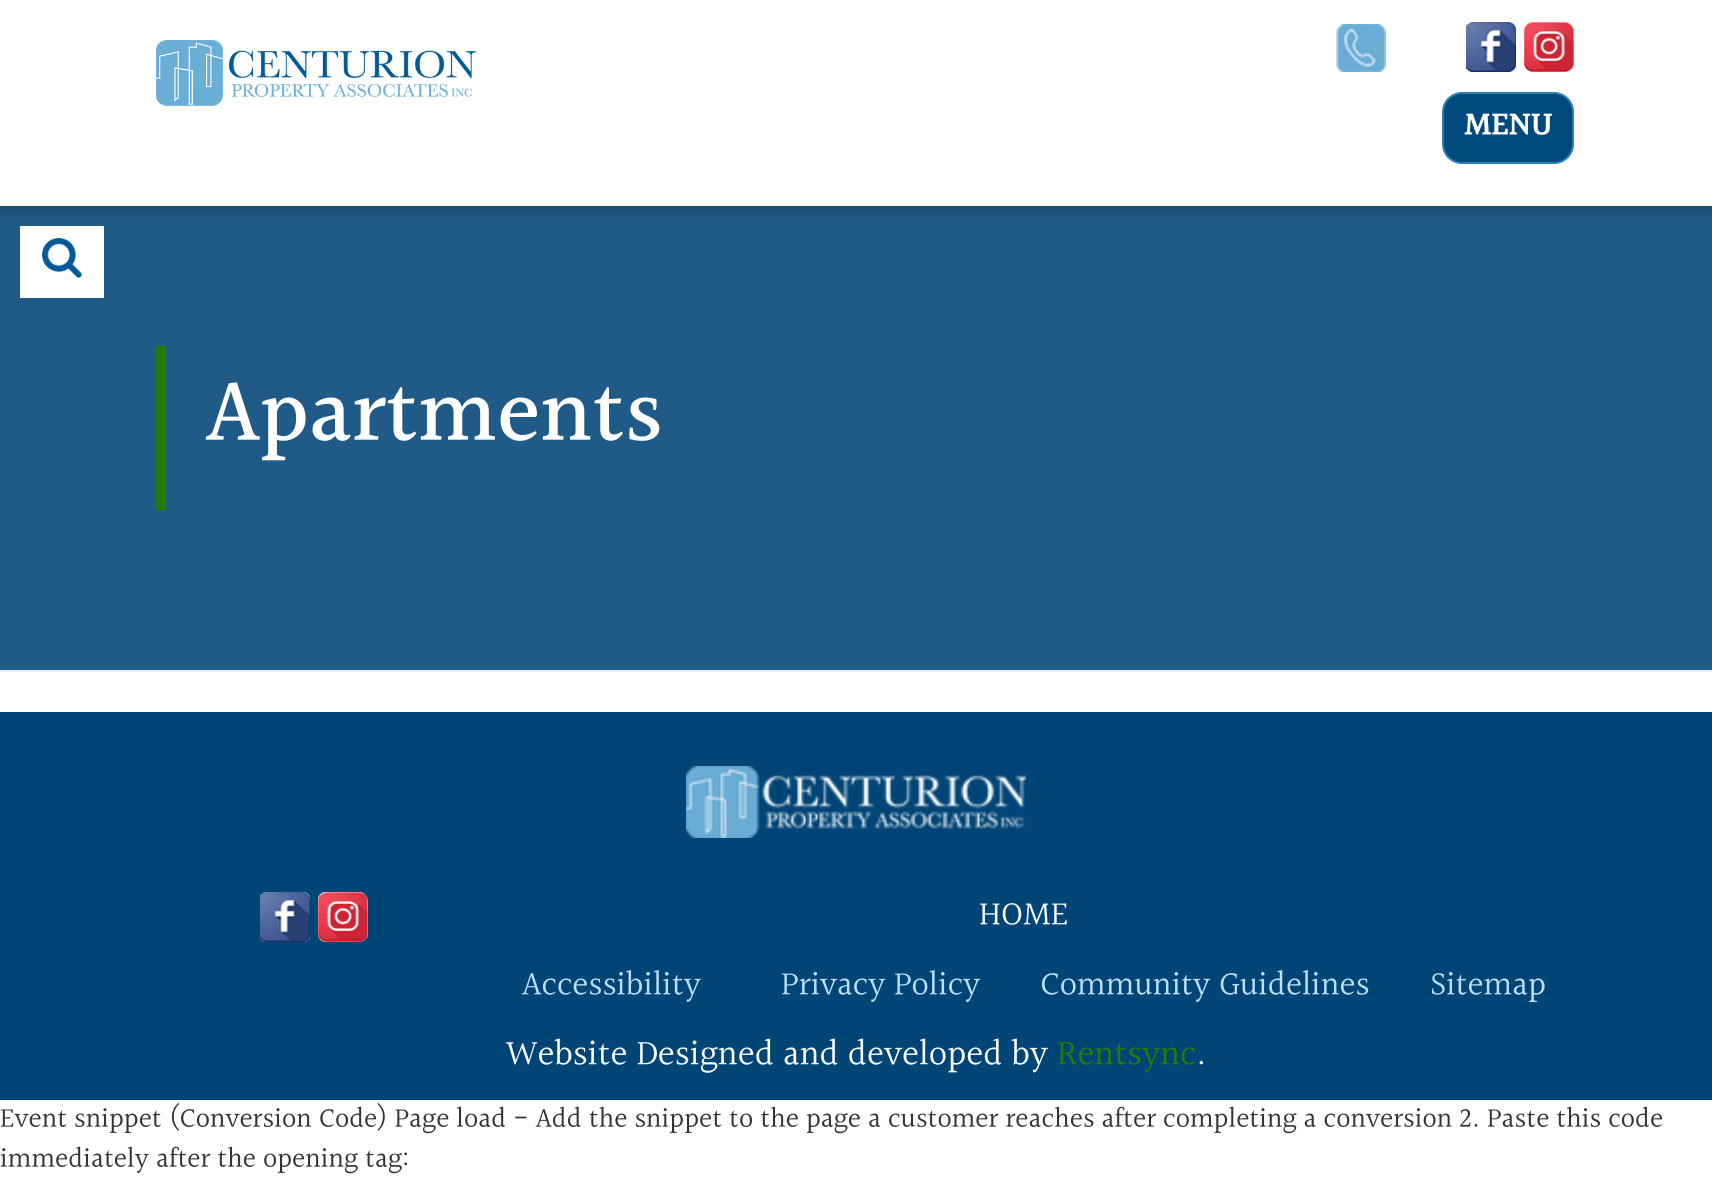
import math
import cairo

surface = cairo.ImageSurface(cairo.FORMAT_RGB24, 1712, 1179)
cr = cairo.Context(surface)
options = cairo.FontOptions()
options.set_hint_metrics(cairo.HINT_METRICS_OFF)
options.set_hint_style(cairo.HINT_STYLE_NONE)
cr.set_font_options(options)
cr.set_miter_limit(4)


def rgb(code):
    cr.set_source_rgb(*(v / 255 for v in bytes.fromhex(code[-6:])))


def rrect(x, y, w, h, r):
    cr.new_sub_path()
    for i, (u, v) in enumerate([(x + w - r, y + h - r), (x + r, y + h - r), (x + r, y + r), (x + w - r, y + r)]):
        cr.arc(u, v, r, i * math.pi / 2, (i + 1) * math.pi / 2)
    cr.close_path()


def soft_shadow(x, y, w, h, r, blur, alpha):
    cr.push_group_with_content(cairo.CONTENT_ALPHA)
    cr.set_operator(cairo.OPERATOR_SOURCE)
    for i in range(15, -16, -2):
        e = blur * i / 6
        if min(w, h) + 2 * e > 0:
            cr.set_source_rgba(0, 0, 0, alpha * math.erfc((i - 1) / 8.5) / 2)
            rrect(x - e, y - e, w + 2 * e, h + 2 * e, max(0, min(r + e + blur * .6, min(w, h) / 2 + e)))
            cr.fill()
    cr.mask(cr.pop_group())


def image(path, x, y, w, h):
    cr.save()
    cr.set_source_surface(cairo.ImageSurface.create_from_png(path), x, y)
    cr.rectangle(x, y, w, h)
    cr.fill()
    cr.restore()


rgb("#ffffff")
cr.paint()
rgb("#205b87")
cr.rectangle(0, 206, 1712, 464)
cr.fill()
cr.save()
cr.rectangle(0, 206, 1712, 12)
cr.clip()
rgb("#000000")
soft_shadow(-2, 2, 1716, 210, 0, 5, 0.2)
cr.restore()
image("img/1.png", 156, 40, 320, 66)
image("img/2.png", 1336, 24, 50, 48)
image("img/3.png", 1466, 22, 50, 50)
image("img/4.png", 1524, 22, 50, 50)
rgb("#00497c")
rrect(1443, 93, 130, 70, 19)
cr.fill_preserve()
rgb("#2882b0")
cr.stroke()
rgb("#ffffff")
cr.rectangle(20, 226, 84, 72)
cr.fill()
image("img/5.png", 42, 238, 40, 40)
for x, y, w, h, color in [
    (0, 670, 1712, 2, "#eeeeee"),
    (156, 346, 10, 164, "#237c03"),
    (0, 712, 1712, 388, "#014576"),
]:
    rgb(color)
    cr.rectangle(x, y, w, h)
    cr.fill()
image("img/6.png", 686, 766, 340, 72)
image("img/7.png", 260, 892, 50, 50)
image("img/8.png", 318, 892, 50, 50)
cr.select_font_face("Halant", cairo.FONT_SLANT_NORMAL, cairo.FONT_WEIGHT_BOLD)
cr.set_font_size(32)
rgb("#ffffff")
cr.move_to(1464, 136)
cr.show_text("MENU")
cr.select_font_face("Halant Medium")
cr.set_font_size(90)
cr.move_to(206, 444)
cr.show_text("Apartments")
cr.select_font_face("Halant")
cr.set_font_size(34)
cr.move_to(979, 926)
cr.show_text("HOME")
rgb("#bae0f8")
for x, y, s in [
    (522, 996, "Accessibility"),
    (781, 996, "Privacy Policy"),
    (1040, 996, "Community Guidelines"),
    (1430, 996, "Sitemap"),
]:
    cr.move_to(x, y)
    cr.show_text(s)
cr.set_font_size(36)
rgb("#ffffff")
cr.move_to(506, 1066)
cr.show_text("Website Designed and developed by")
rgb("#237c03")
cr.move_to(1057, 1066)
cr.show_text("Rentsync")
rgb("#ffffff")
cr.move_to(1196, 1066)
cr.show_text(".")
cr.set_font_size(28)
rgb("#333333")
cr.move_to(0, 1128)
cr.show_text("Event snippet (Conversion Code) Page load - Add the snippet to the page a customer reaches after completing a conversion 2. Paste this code")
cr.move_to(0, 1168)
cr.show_text("immediately after the opening tag:")
surface.write_to_png("page.png")
